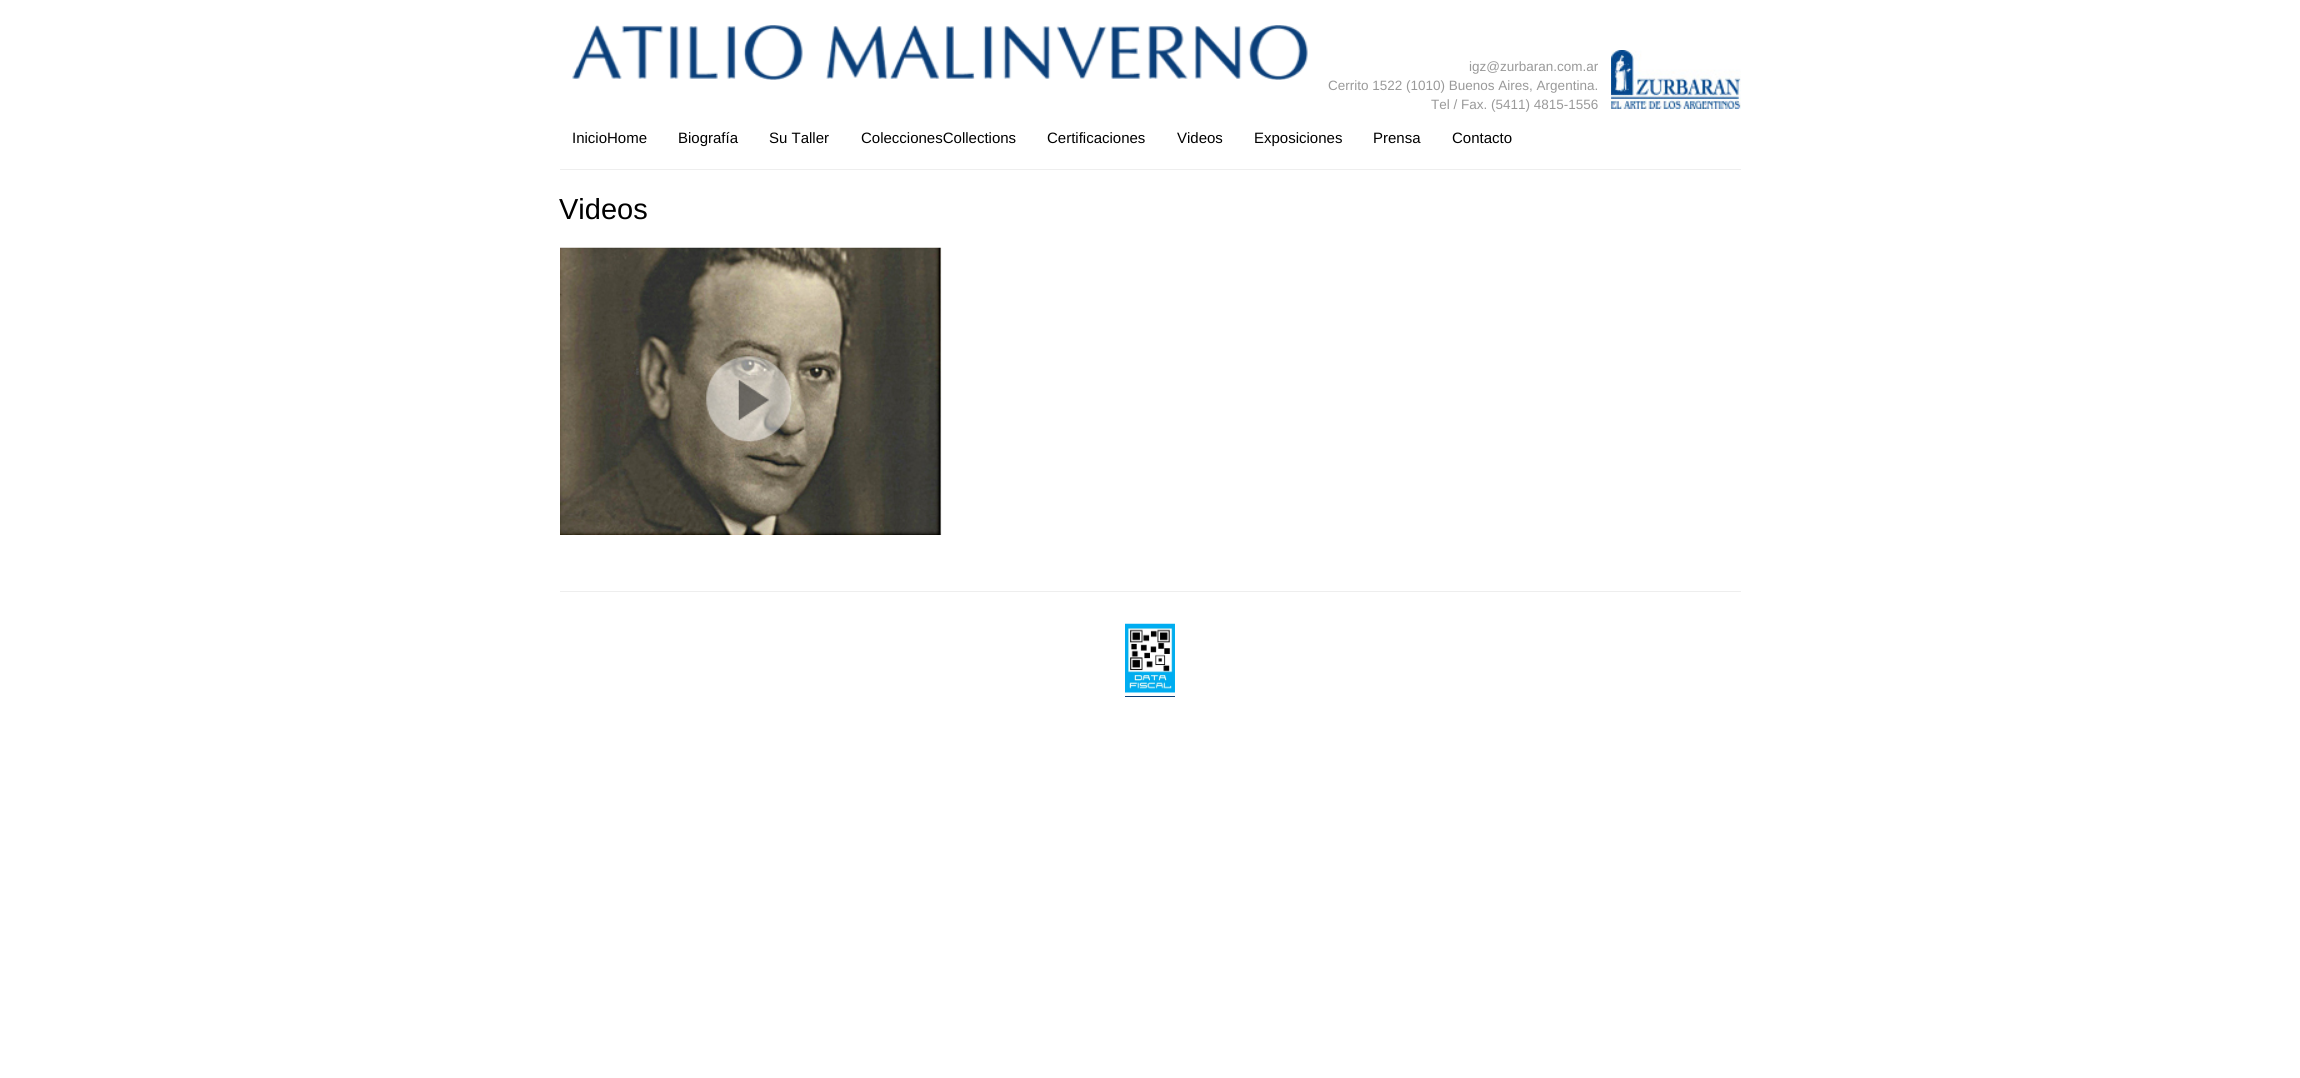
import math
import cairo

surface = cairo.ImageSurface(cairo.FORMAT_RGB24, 2300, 1078)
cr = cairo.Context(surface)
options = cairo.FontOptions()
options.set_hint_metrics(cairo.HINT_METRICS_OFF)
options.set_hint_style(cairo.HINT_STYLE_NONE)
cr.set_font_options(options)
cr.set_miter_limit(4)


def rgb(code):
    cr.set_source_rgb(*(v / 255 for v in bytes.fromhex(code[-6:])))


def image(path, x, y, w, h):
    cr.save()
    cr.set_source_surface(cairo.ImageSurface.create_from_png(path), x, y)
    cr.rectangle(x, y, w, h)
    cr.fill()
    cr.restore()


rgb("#ffffff")
cr.paint()
image("img/1.png", 572, 25, 736, 55)
image("img/2.png", 1611, 50, 130, 59)
image("img/3.png", 1611, 55, 128, 54)
rgb("#eeeeee")
cr.rectangle(560, 169, 1181, 1)
cr.fill()
image("img/4.png", 560, 247, 382, 288)
cr.rectangle(560, 591, 1181, 1)
cr.fill()
image("img/5.png", 1125, 623, 50, 70)
rgb("#0a3f7a")
cr.rectangle(1125, 696, 50, 1)
cr.fill()
cr.select_font_face("Liberation Sans")
cr.set_font_size(13.5)
rgb("#999999")
for x, y, s in [
    (1469, 71, "igz@zurbaran.com.ar"),
    (1328, 90, "Cerrito 1522 (1010) Buenos Aires, Argentina."),
    (1431, 109, "Tel / Fax. (5411) 4815-1556"),
]:
    cr.move_to(x, y)
    cr.show_text(s)
cr.set_font_size(15)
rgb("#000000")
for x, y, s in [
    (572, 143, "InicioHome"),
    (678, 143, "Biografía"),
    (769, 143, "Su Taller"),
    (861, 143, "ColeccionesCollections"),
    (1047, 143, "Certificaciones"),
    (1177, 143, "Videos"),
    (1254, 143, "Exposiciones"),
    (1373, 143, "Prensa"),
    (1452, 143, "Contacto"),
]:
    cr.move_to(x, y)
    cr.show_text(s)
cr.set_font_size(29)
cr.move_to(559, 219)
cr.show_text("Videos")
surface.write_to_png("page.png")
